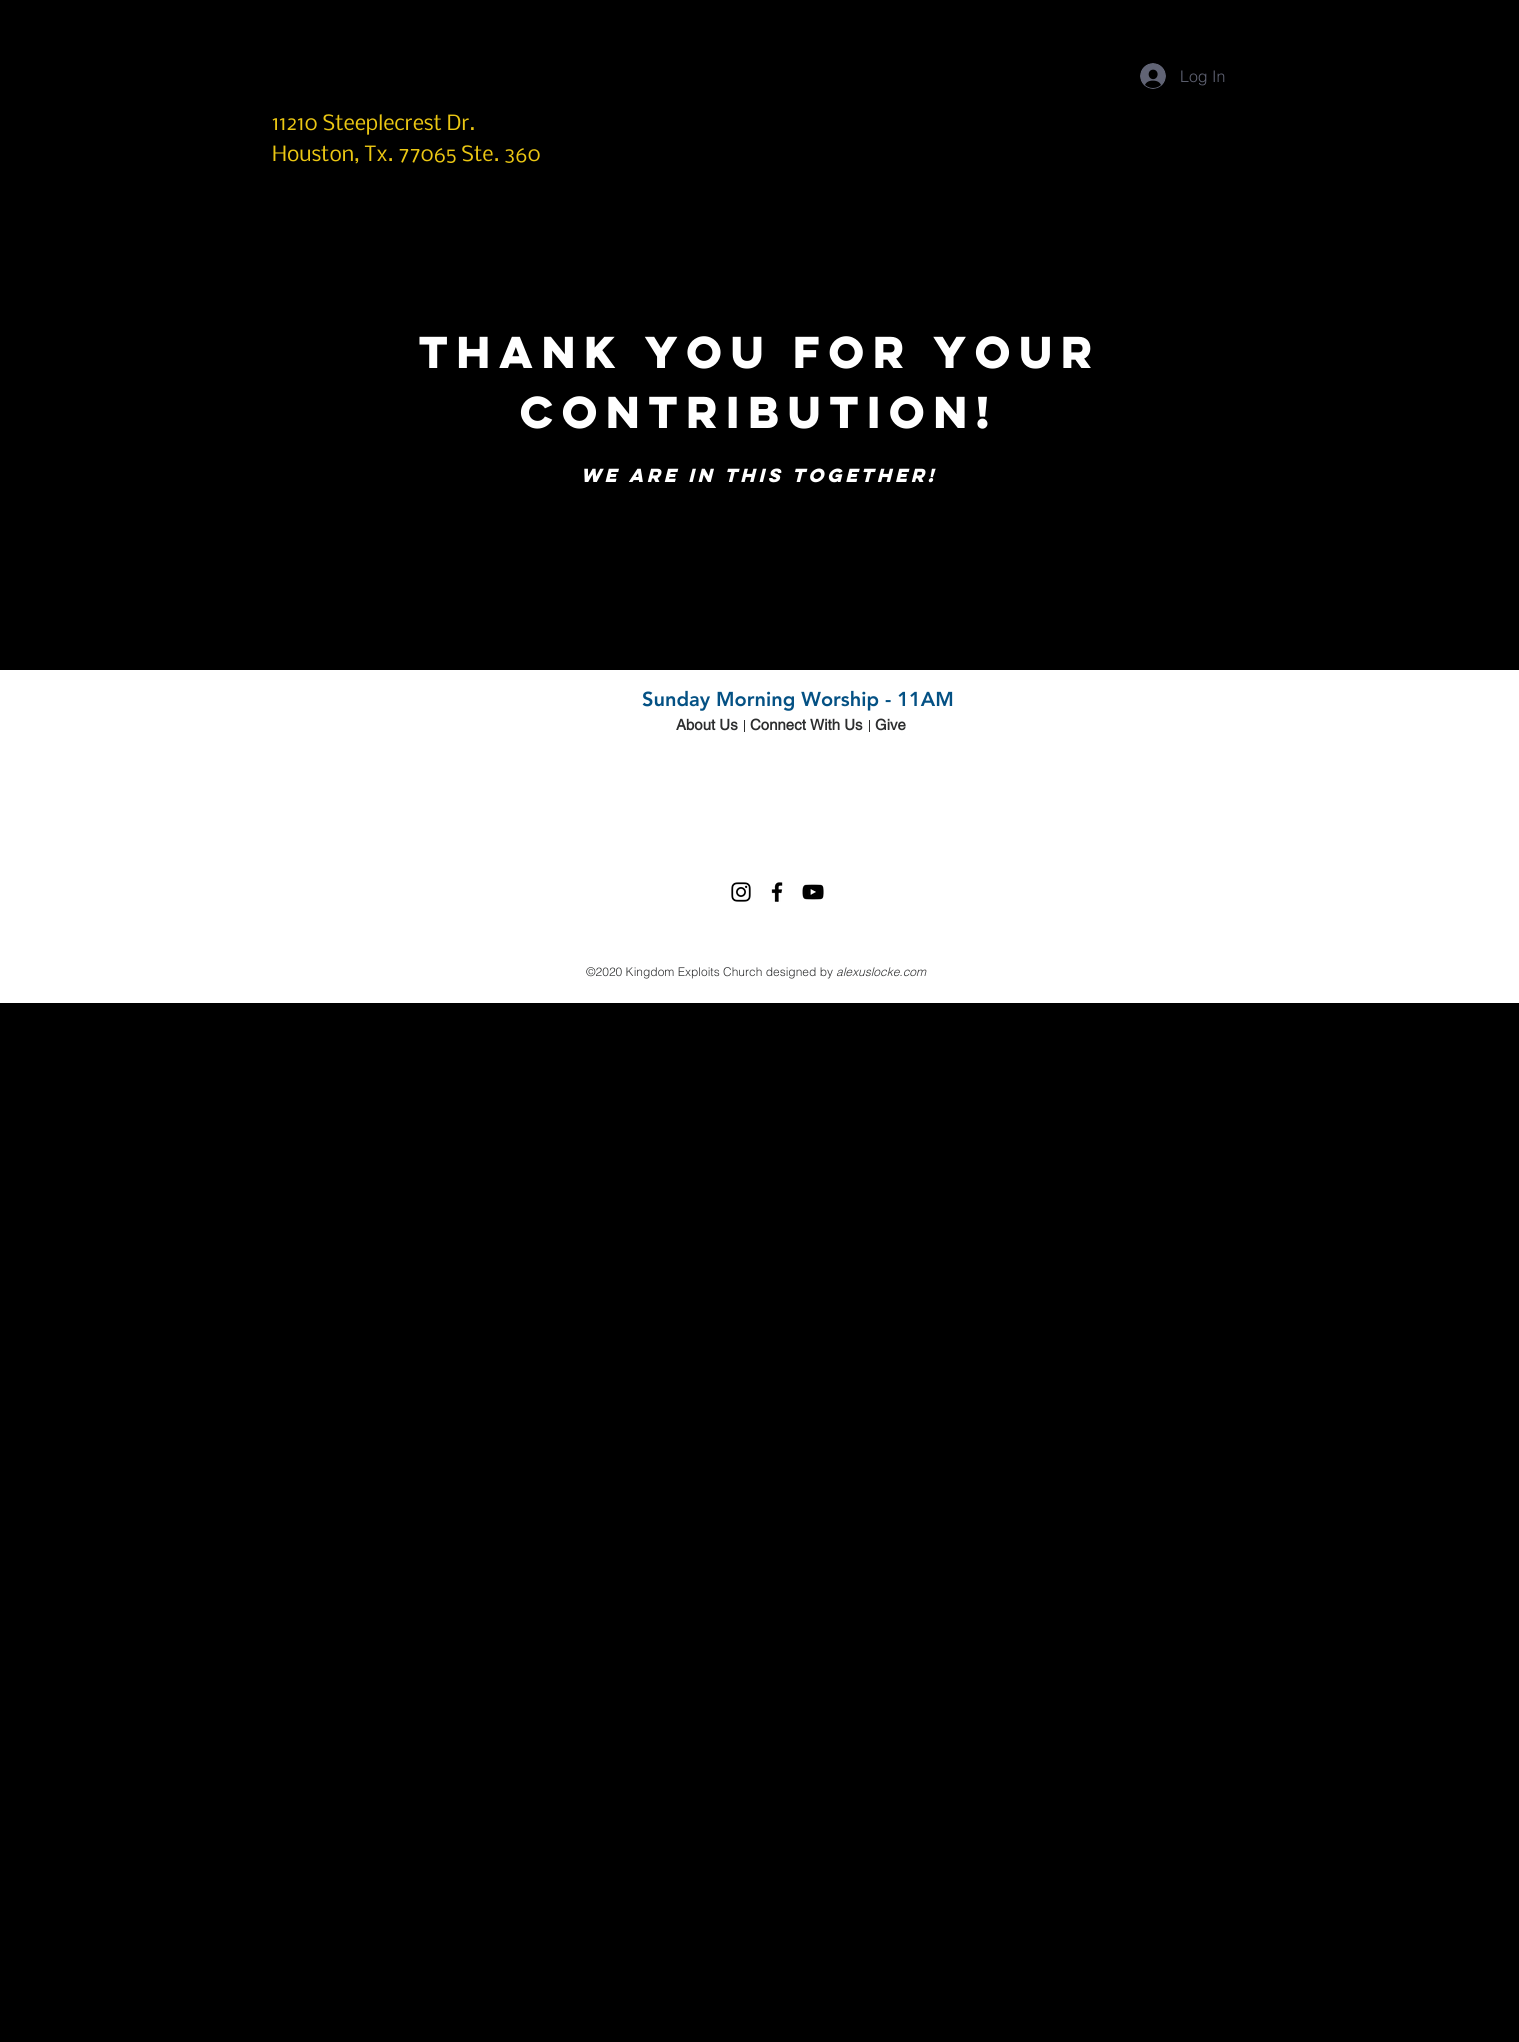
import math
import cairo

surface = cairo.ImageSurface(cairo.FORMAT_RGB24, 1519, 2042)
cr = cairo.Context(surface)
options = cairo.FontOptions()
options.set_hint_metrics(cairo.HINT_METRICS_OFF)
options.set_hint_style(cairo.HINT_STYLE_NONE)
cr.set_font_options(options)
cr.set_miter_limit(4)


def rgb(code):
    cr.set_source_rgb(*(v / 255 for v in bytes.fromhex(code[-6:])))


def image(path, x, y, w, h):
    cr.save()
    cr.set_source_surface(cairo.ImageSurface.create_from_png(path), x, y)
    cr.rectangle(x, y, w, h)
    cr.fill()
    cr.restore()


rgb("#000000")
cr.paint()
image("img/1.png", 1140, 63, 26, 26)
for x, y, w, h, color in [
    (0, 670, 1519, 333, "#ffffff"),
    (744, 720, 1, 12, "#2c2d2e"),
    (869, 720, 1, 12, "#2c2d2e"),
]:
    rgb(color)
    cr.rectangle(x, y, w, h)
    cr.fill()
image("img/2.png", 731, 882, 20, 20)
image("img/3.png", 771, 882, 12, 20)
image("img/4.png", 802, 884, 22, 16)
cr.select_font_face("helvetica Light")
cr.set_font_size(16)
rgb("#616475")
cr.move_to(1180, 82)
cr.show_text("Log In")
cr.select_font_face("Nobile")
cr.set_font_size(20)
rgb("#ebc713")
cr.move_to(272, 130)
cr.show_text("11210 Steeplecrest Dr.")
cr.move_to(272, 161)
cr.show_text("Houston, Tx. 77065 Ste. 360")
cr.select_font_face("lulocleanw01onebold", cairo.FONT_SLANT_NORMAL, cairo.FONT_WEIGHT_BOLD)
cr.set_font_size(40)
rgb("#ffffff")
cr.move_to(419, 368)
cr.show_text("THANK YOU FOR YouR")
cr.move_to(520, 428)
cr.show_text("CONTRIBUTION!")
cr.select_font_face("lulocleanw01onebold", cairo.FONT_SLANT_ITALIC, cairo.FONT_WEIGHT_BOLD)
cr.set_font_size(17)
cr.move_to(581, 482)
cr.show_text("we are in this together!")
cr.select_font_face("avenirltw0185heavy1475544 Black")
cr.set_font_size(20)
rgb("#045184")
cr.move_to(642, 706)
cr.show_text("Sunday Morning Worship - 11AM")
cr.select_font_face("helvetica", cairo.FONT_SLANT_NORMAL, cairo.FONT_WEIGHT_BOLD)
cr.set_font_size(15)
rgb("#2c2d2e")
for x, y, s in [
    (676, 730, "About Us"),
    (750, 730, "Connect With Us"),
    (875, 730, "Give"),
]:
    cr.move_to(x, y)
    cr.show_text(s)
cr.select_font_face("helvetica Light")
cr.set_font_size(12)
cr.move_to(586, 976)
cr.show_text("©2020 Kingdom Exploits Church designed by")
cr.select_font_face("helvetica Light", cairo.FONT_SLANT_ITALIC)
cr.move_to(836, 976)
cr.show_text("alexuslocke.com")
surface.write_to_png("page.png")
